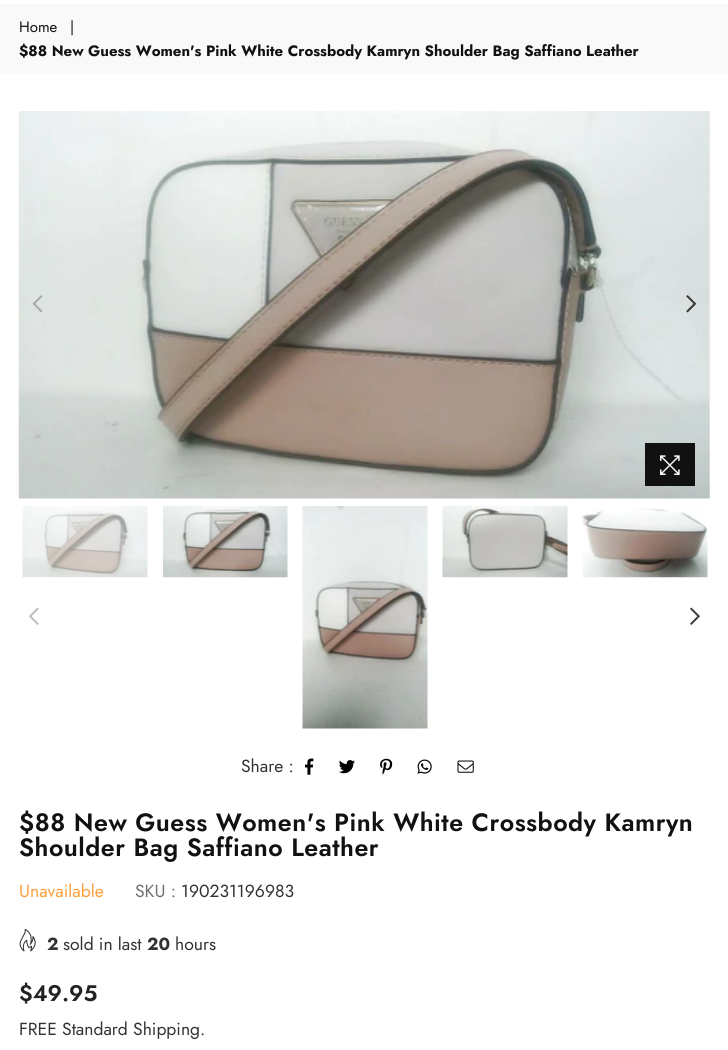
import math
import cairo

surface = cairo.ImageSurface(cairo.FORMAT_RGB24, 728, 1050)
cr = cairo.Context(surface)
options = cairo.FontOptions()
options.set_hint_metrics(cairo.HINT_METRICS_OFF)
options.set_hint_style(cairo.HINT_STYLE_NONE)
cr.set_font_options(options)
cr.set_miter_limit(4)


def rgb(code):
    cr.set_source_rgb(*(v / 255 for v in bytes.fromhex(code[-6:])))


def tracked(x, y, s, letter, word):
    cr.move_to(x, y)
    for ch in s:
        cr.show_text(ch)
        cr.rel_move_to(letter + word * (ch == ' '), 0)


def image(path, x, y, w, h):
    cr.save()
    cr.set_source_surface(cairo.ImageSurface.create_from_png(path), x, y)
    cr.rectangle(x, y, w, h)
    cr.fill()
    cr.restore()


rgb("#ffffff")
cr.paint()
rgb("#f9f9f9")
cr.rectangle(0, 4, 728, 70)
cr.fill()
image("img/1.png", 18, 111, 692, 388)
image("img/2.png", 32, 295, 11, 18)
image("img/3.png", 686, 295, 11, 18)
rgb("#111111")
cr.rectangle(645, 443, 50, 43)
cr.fill()
image("img/4.png", 660, 455, 20, 20)
image("img/5.png", 22, 506, 126, 72)
image("img/6.png", 163, 506, 125, 72)
image("img/7.png", 302, 506, 126, 223)
image("img/8.png", 442, 506, 126, 72)
image("img/9.png", 582, 508, 126, 70)
image("img/10.png", 29, 607, 10, 18)
image("img/11.png", 690, 607, 10, 18)
image("img/12.png", 305, 758, 9, 17)
image("img/13.png", 339, 760, 16, 14)
image("img/14.png", 380, 758, 13, 17)
image("img/15.png", 417, 759, 15, 15)
image("img/16.png", 457, 760, 17, 13)
image("img/17.png", 19, 929, 17, 23)
cr.select_font_face("Jost")
cr.set_font_size(15)
cr.move_to(19, 32)
cr.show_text("Home")
cr.move_to(70, 32)
cr.show_text("|")
cr.select_font_face("Jost", cairo.FONT_SLANT_NORMAL, cairo.FONT_WEIGHT_BOLD)
cr.move_to(19, 56)
cr.show_text("$88 New Guess Women's Pink White Crossbody Kamryn Shoulder Bag Saffiano Leather")
cr.select_font_face("Jost")
cr.set_font_size(17.5)
rgb("#333333")
cr.move_to(241, 772)
cr.show_text("Share :")
cr.select_font_face("Jost SemiBold")
cr.set_font_size(25)
rgb("#111111")
tracked(19, 831, "$88 New Guess Women's Pink White Crossbody Kamryn", 0.5, 0)
tracked(19, 856, "Shoulder Bag Saffiano Leather", 0.5, 0)
cr.select_font_face("Jost")
cr.set_font_size(17.5)
rgb("#ff9f3b")
cr.move_to(19, 897)
cr.show_text("Unavailable")
rgb("#707070")
cr.move_to(135, 897)
cr.show_text("SKU :")
rgb("#333333")
cr.move_to(181, 897)
cr.show_text("190231196983")
cr.select_font_face("Jost", cairo.FONT_SLANT_NORMAL, cairo.FONT_WEIGHT_BOLD)
cr.move_to(47, 950)
cr.show_text("2")
cr.select_font_face("Jost")
cr.move_to(63, 950)
cr.show_text("sold in last")
cr.select_font_face("Jost", cairo.FONT_SLANT_NORMAL, cairo.FONT_WEIGHT_BOLD)
cr.move_to(147, 950)
cr.show_text("20")
cr.select_font_face("Jost")
cr.move_to(175, 950)
cr.show_text("hours")
cr.select_font_face("Jost SemiBold")
cr.set_font_size(22.5)
rgb("#222222")
cr.move_to(19, 1001)
cr.show_text("$49.95")
cr.select_font_face("Jost")
cr.set_font_size(17.5)
rgb("#333333")
cr.move_to(19, 1035)
cr.show_text("FREE Standard Shipping.")
surface.write_to_png("page.png")
